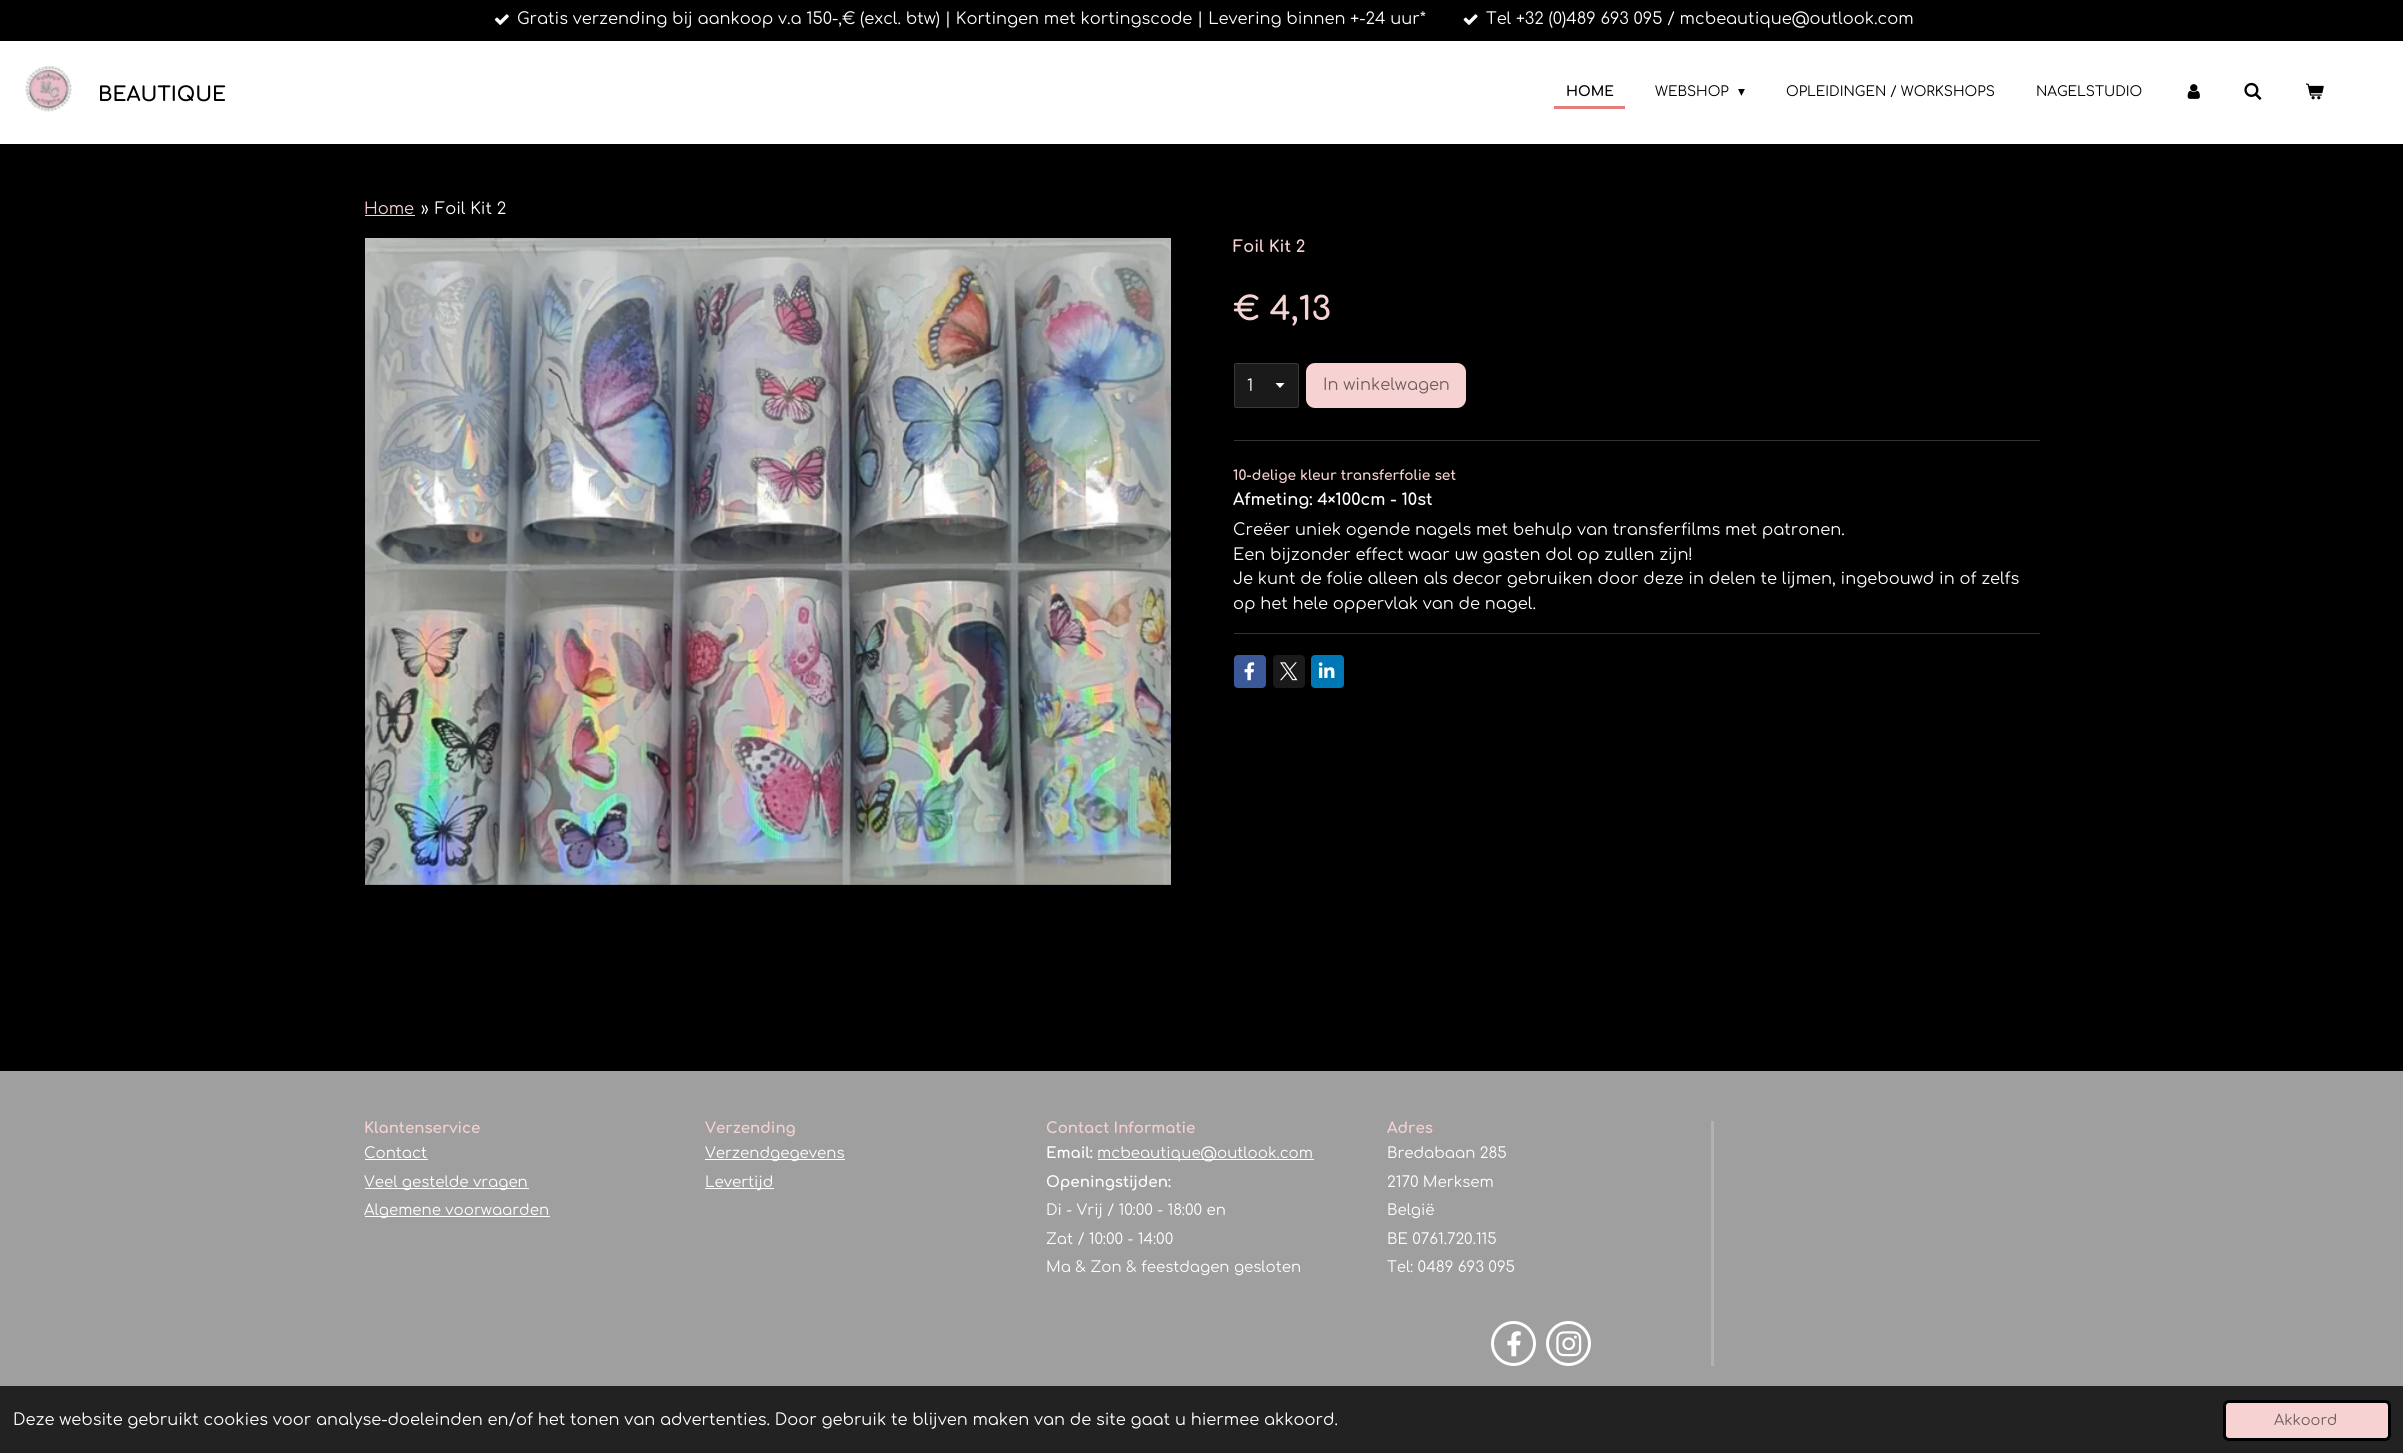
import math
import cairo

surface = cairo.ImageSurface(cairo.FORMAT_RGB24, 2403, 1453)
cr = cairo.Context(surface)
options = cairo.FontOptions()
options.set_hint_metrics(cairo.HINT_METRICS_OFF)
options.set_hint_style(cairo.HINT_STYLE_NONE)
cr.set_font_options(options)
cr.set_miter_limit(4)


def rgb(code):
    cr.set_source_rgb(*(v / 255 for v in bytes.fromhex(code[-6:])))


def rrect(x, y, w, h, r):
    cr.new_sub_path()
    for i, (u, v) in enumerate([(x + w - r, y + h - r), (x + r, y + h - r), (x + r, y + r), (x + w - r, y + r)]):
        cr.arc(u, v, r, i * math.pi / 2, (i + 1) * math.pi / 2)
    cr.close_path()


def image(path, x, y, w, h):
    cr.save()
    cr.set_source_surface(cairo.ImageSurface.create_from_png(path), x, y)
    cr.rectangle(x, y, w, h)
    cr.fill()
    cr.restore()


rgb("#ffffff")
cr.paint()
rgb("#000000")
cr.rectangle(0, 0, 2403, 41)
cr.fill()
image("img/1.png", 494, 14, 15, 11)
image("img/2.png", 1463, 14, 15, 11)
image("img/3.png", 25, 66, 47, 46)
rgb("#e57d7d")
cr.rectangle(1554, 106, 71, 3)
cr.fill()
image("img/4.png", 2187, 84, 13, 15)
image("img/5.png", 2244, 82, 18, 18)
image("img/6.png", 2305, 83, 19, 17)
rgb("#000000")
cr.rectangle(0, 144, 2403, 927)
cr.fill()
rgb("#f6d2d2")
cr.rectangle(365, 215, 50, 1)
cr.fill()
image("img/7.png", 365, 238, 806, 647)
rgb("#1a1a1a")
rrect(1234, 363, 65, 45, 2.5)
cr.fill()
cr.save()
cr.rectangle(1275, 383, 10, 6)
cr.clip()
rgb("#ffffff")
cr.new_path()
cr.move_to(1280, 388)
cr.line_to(1275, 382.5)
cr.line_to(1285, 382.5)
cr.close_path()
cr.fill()
cr.restore()
rrect(1234.5, 363.5, 64, 44, 2)
cr.set_source_rgba(0.349, 0.349, 0.349, 0.5)
cr.set_line_width(1)
cr.stroke()
rgb("#f6d2d2")
rrect(1306, 363, 160, 45, 9)
cr.fill()
rgb("#333333")
cr.rectangle(1234, 440, 806, 1)
cr.fill()
cr.rectangle(1234, 633, 806, 1)
cr.fill()
rgb("#3b5998")
rrect(1234, 655, 32, 33, 4)
cr.fill()
image("img/8.png", 1244, 662, 11, 19)
rgb("#1a1a1a")
rrect(1273, 655, 32, 33, 4)
cr.fill()
image("img/9.png", 1280, 662, 18, 19)
rgb("#0077b5")
rrect(1311, 655, 33, 33, 4)
cr.fill()
image("img/10.png", 1318, 662, 17, 16)
for x, y, w, h, color in [
    (0, 1071, 2403, 315, "#9f9f9f"),
    (365, 1159, 63, 1, "#ffffff"),
    (365, 1188, 164, 1, "#ffffff"),
    (365, 1216, 185, 1, "#ffffff"),
    (705, 1159, 140, 1, "#ffffff"),
    (705, 1188, 69, 1, "#ffffff"),
    (1098, 1159, 216, 1, "#ffffff"),
    (1711, 1121, 3, 245, "#b2b2b2"),
]:
    rgb(color)
    cr.rectangle(x, y, w, h)
    cr.fill()
cr.arc(1513.5, 1343.5, 21, 0, 2 * math.pi)
rgb("#ffffff")
cr.set_line_width(3)
cr.stroke()
image("img/11.png", 1507, 1331, 14, 26)
cr.arc(1568.5, 1343.5, 21, 0, 2 * math.pi)
cr.stroke()
image("img/12.png", 1556, 1331, 26, 26)
rgb("#222222")
cr.rectangle(0, 1386, 2403, 67)
cr.fill()
rgb("#f6d2d2")
rrect(2224.5, 1401.5, 165, 38, 4.5)
cr.fill_preserve()
rgb("#000000")
cr.stroke()
cr.select_font_face("Comfortaa")
cr.set_font_size(16.25)
rgb("#ffffff")
cr.move_to(517, 24)
cr.show_text("Gratis verzending bij aankoop v.a 150-,€ (excl. btw) | Kortingen met kortingscode | Levering binnen +-24 uur*")
cr.move_to(1486, 24)
cr.show_text("Tel +32 (0)489 693 095 / mcbeautique@outlook.com")
cr.select_font_face("Comfortaa", cairo.FONT_SLANT_NORMAL, cairo.FONT_WEIGHT_BOLD)
cr.set_font_size(20)
rgb("#000000")
cr.move_to(98, 101)
cr.show_text("BEAUTIQUE")
cr.set_font_size(13.75)
cr.move_to(1566, 96)
cr.show_text("HOME")
cr.select_font_face("Comfortaa")
cr.move_to(1655, 96)
cr.show_text("WEBSHOP")
cr.select_font_face("DejaVu Sans")
cr.move_to(1738, 96)
cr.show_text("▾")
cr.select_font_face("Comfortaa")
cr.move_to(1786, 96)
cr.show_text("OPLEIDINGEN / WORKSHOPS")
cr.move_to(2036, 96)
cr.show_text("NAGELSTUDIO")
cr.set_font_size(16.25)
rgb("#f6d2d2")
cr.move_to(364, 214)
cr.show_text("Home")
rgb("#ffffff")
cr.move_to(421, 214)
cr.show_text("»")
cr.move_to(435, 214)
cr.show_text("Foil Kit 2")
cr.select_font_face("Comfortaa", cairo.FONT_SLANT_NORMAL, cairo.FONT_WEIGHT_BOLD)
rgb("#f6d2d2")
cr.move_to(1233, 252)
cr.show_text("Foil Kit 2")
cr.set_font_size(32.5)
cr.move_to(1233, 320)
cr.show_text("€ 4,13")
cr.select_font_face("Comfortaa")
cr.set_font_size(16.25)
rgb("#ffffff")
cr.move_to(1247, 391)
cr.show_text("1")
rgb("#6f5e5e")
cr.move_to(1323, 390)
cr.show_text("In winkelwagen")
cr.select_font_face("Comfortaa", cairo.FONT_SLANT_NORMAL, cairo.FONT_WEIGHT_BOLD)
cr.set_font_size(13.75)
rgb("#f6d2d2")
cr.move_to(1233, 480)
cr.show_text("10-delige kleur transferfolie set")
cr.set_font_size(16.25)
rgb("#ffffff")
cr.move_to(1233, 505)
cr.show_text("Afmeting: 4×100cm - 10st")
cr.select_font_face("Comfortaa")
for x, y, s in [
    (1233, 535, "Creëer uniek ogende nagels met behulp van transferfilms met patronen."),
    (1233, 560, "Een bijzonder effect waar uw gasten dol op zullen zijn!"),
    (1233, 584, "Je kunt de folie alleen als decor gebruiken door deze in delen te lijmen, ingebouwd in of zelfs"),
    (1233, 609, "op het hele oppervlak van de nagel."),
]:
    cr.move_to(x, y)
    cr.show_text(s)
cr.select_font_face("Comfortaa", cairo.FONT_SLANT_NORMAL, cairo.FONT_WEIGHT_BOLD)
cr.set_font_size(15)
rgb("#f6d2d2")
cr.move_to(364, 1133)
cr.show_text("Klantenservice")
cr.select_font_face("Comfortaa")
rgb("#ffffff")
for x, y, s in [
    (364, 1158, "Contact"),
    (364, 1187, "Veel gestelde vragen"),
    (364, 1215, "Algemene voorwaarden"),
]:
    cr.move_to(x, y)
    cr.show_text(s)
cr.select_font_face("Comfortaa", cairo.FONT_SLANT_NORMAL, cairo.FONT_WEIGHT_BOLD)
rgb("#f6d2d2")
cr.move_to(705, 1133)
cr.show_text("Verzending")
cr.select_font_face("Comfortaa")
rgb("#ffffff")
cr.move_to(705, 1158)
cr.show_text("Verzendgegevens")
cr.move_to(705, 1187)
cr.show_text("Levertijd")
cr.select_font_face("Comfortaa", cairo.FONT_SLANT_NORMAL, cairo.FONT_WEIGHT_BOLD)
rgb("#f6d2d2")
cr.move_to(1046, 1133)
cr.show_text("Contact Informatie")
rgb("#ffffff")
cr.move_to(1046, 1158)
cr.show_text("Email:")
cr.select_font_face("Comfortaa")
cr.move_to(1097, 1158)
cr.show_text("mcbeautique@outlook.com")
cr.select_font_face("Comfortaa", cairo.FONT_SLANT_NORMAL, cairo.FONT_WEIGHT_BOLD)
cr.move_to(1046, 1187)
cr.show_text("Openingstijden:")
cr.select_font_face("Comfortaa")
for x, y, s in [
    (1046, 1215, "Di - Vrij / 10:00 - 18:00 en"),
    (1046, 1244, "Zat / 10:00 - 14:00"),
    (1046, 1272, "Ma & Zon & feestdagen gesloten"),
]:
    cr.move_to(x, y)
    cr.show_text(s)
cr.select_font_face("Comfortaa", cairo.FONT_SLANT_NORMAL, cairo.FONT_WEIGHT_BOLD)
rgb("#f6d2d2")
cr.move_to(1387, 1133)
cr.show_text("Adres")
cr.select_font_face("Comfortaa")
rgb("#ffffff")
for x, y, s in [
    (1387, 1158, "Bredabaan 285"),
    (1387, 1187, "2170 Merksem"),
    (1387, 1215, "België"),
    (1387, 1244, "BE 0761.720.115"),
    (1387, 1272, "Tel: 0489 693 095"),
]:
    cr.move_to(x, y)
    cr.show_text(s)
cr.set_font_size(16.25)
cr.move_to(13, 1425)
cr.show_text("Deze website gebruikt cookies voor analyse-doeleinden en/of het tonen van advertenties. Door gebruik te blijven maken van de site gaat u hiermee akkoord.")
cr.set_font_size(14.5)
rgb("#6f5e5e")
cr.move_to(2274, 1425)
cr.show_text("Akkoord")
surface.write_to_png("page.png")
